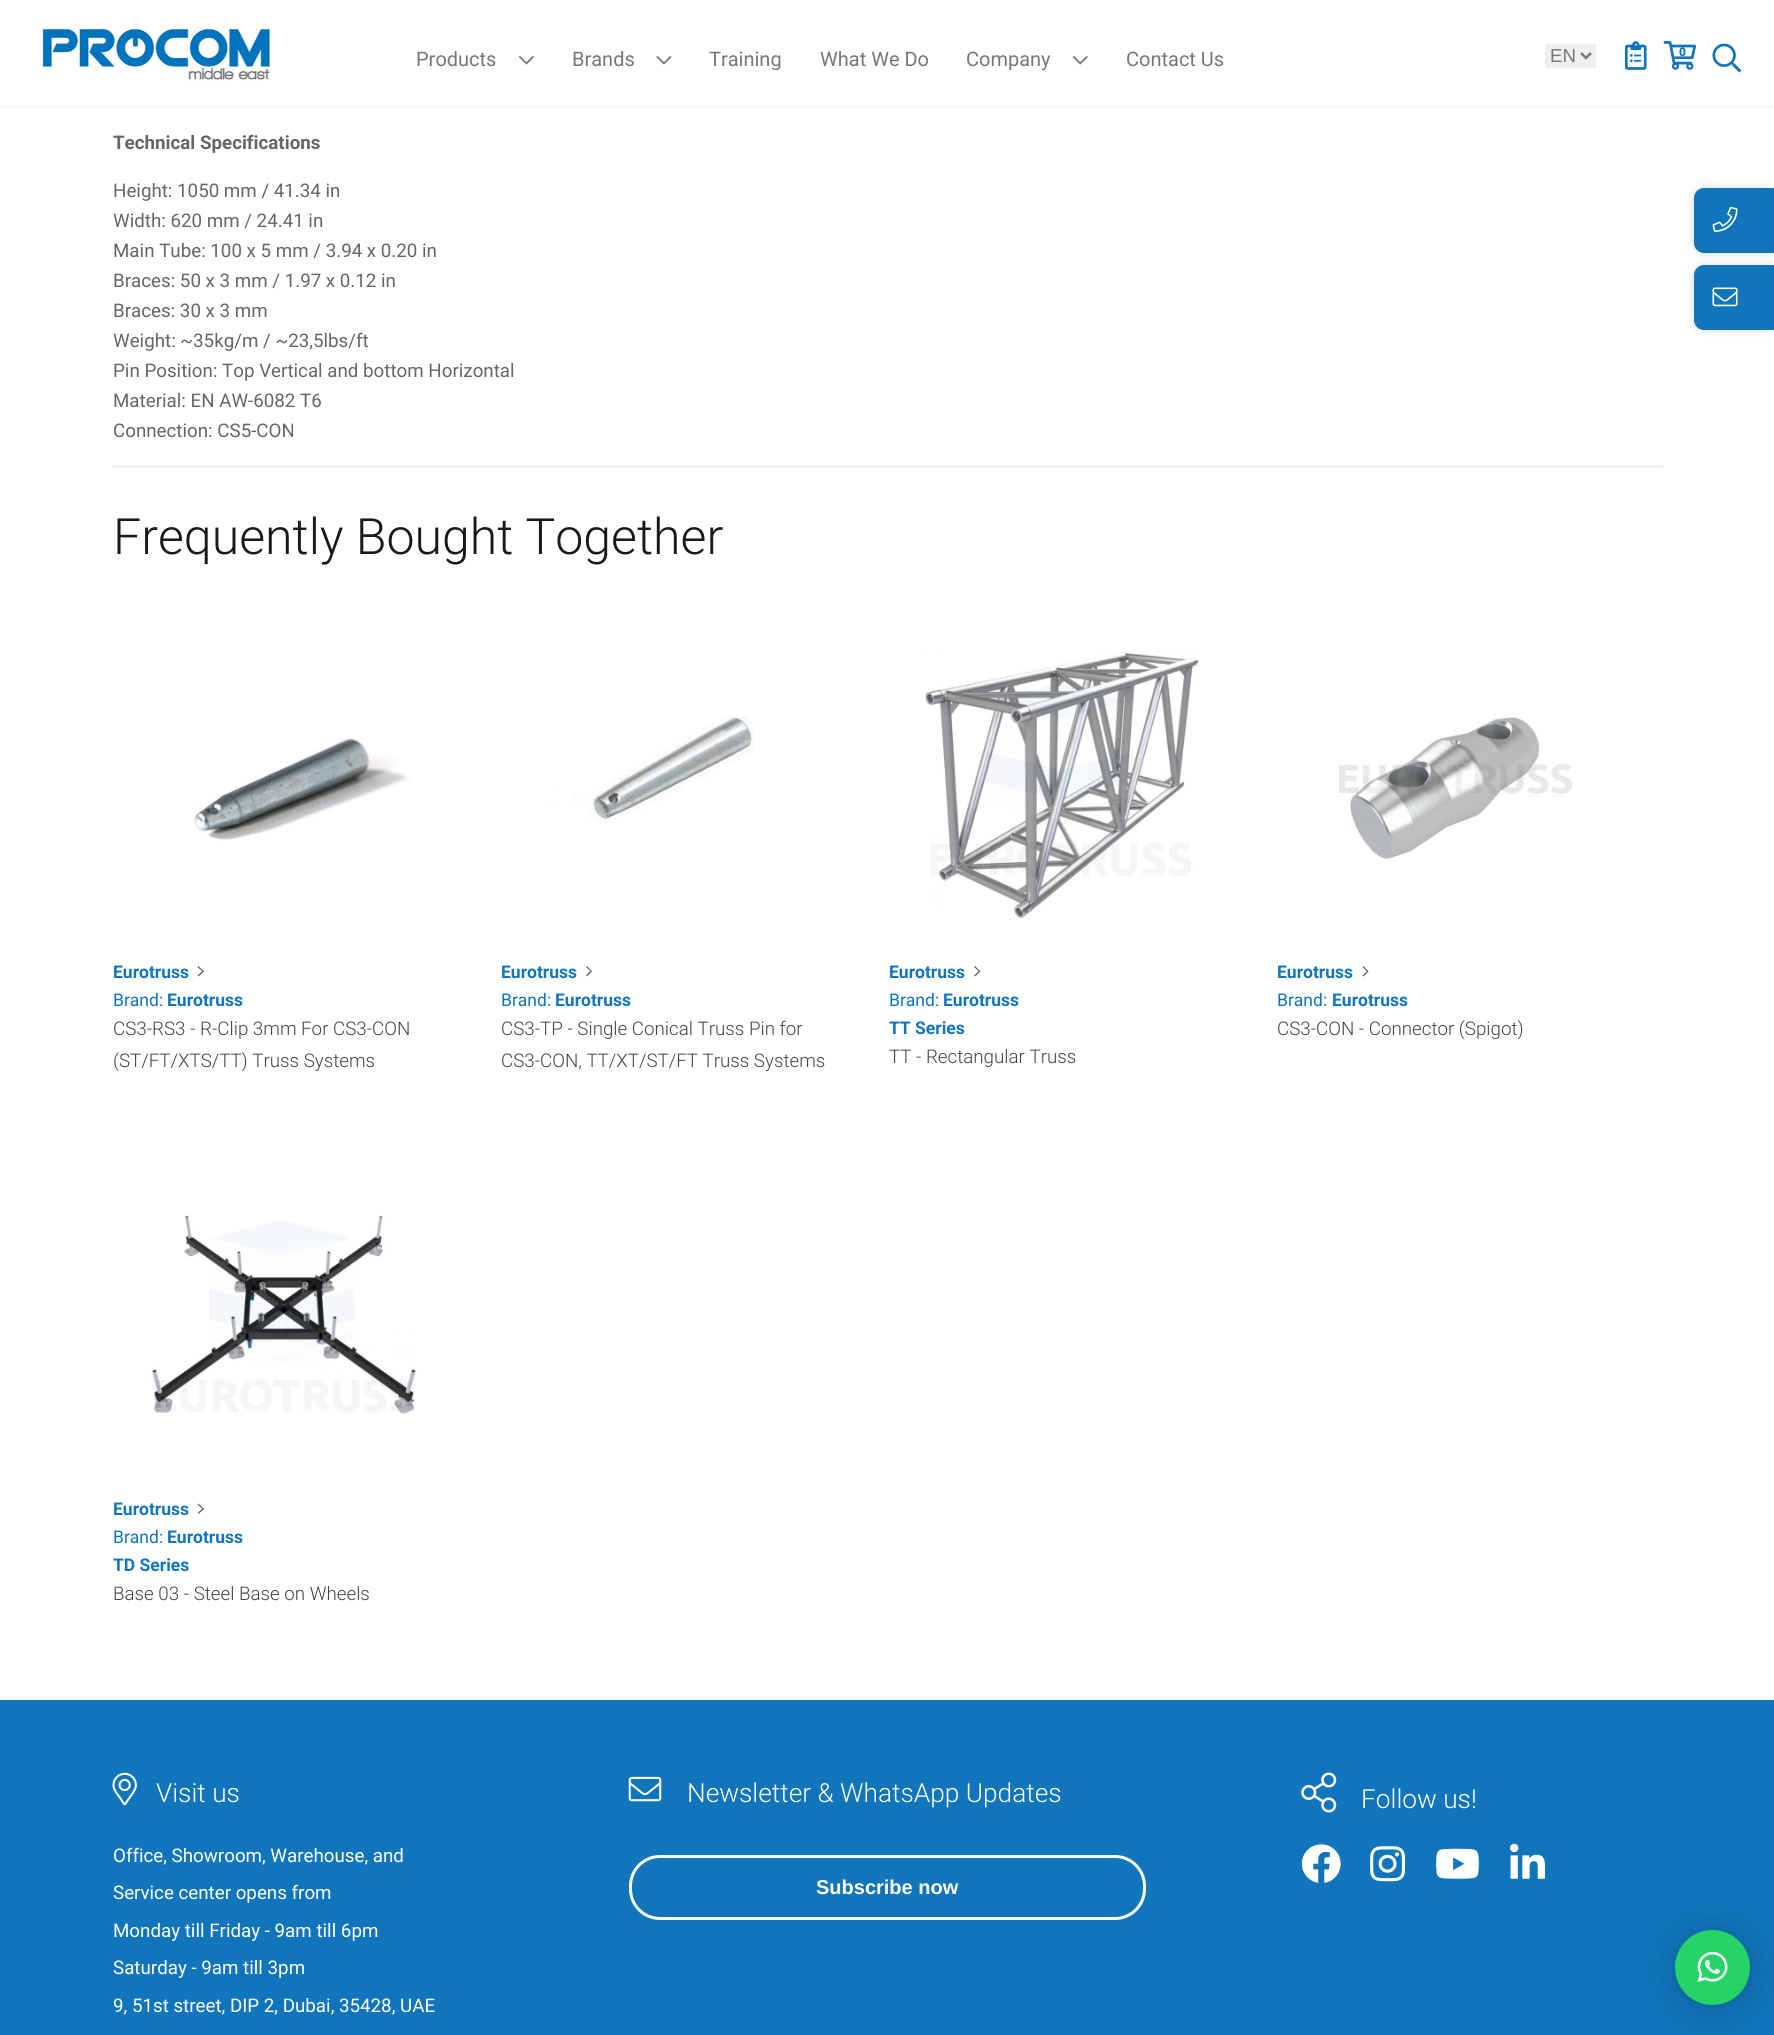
import math
import cairo

surface = cairo.ImageSurface(cairo.FORMAT_RGB24, 1774, 2035)
cr = cairo.Context(surface)
options = cairo.FontOptions()
options.set_hint_metrics(cairo.HINT_METRICS_OFF)
options.set_hint_style(cairo.HINT_STYLE_NONE)
cr.set_font_options(options)
cr.set_miter_limit(4)


def rgb(code):
    cr.set_source_rgb(*(v / 255 for v in bytes.fromhex(code[-6:])))


def rrect(x, y, w, h, r):
    cr.new_sub_path()
    for i, (u, v) in enumerate([(x + w - r, y + h - r), (x + r, y + h - r), (x + r, y + r), (x + w - r, y + r)]):
        cr.arc(u, v, r, i * math.pi / 2, (i + 1) * math.pi / 2)
    cr.close_path()


def soft_shadow(x, y, w, h, r, blur, alpha):
    cr.push_group_with_content(cairo.CONTENT_ALPHA)
    cr.set_operator(cairo.OPERATOR_SOURCE)
    for i in range(15, -16, -2):
        e = blur * i / 6
        if min(w, h) + 2 * e > 0:
            cr.set_source_rgba(0, 0, 0, alpha * math.erfc((i - 1) / 8.5) / 2)
            rrect(x - e, y - e, w + 2 * e, h + 2 * e, max(0, min(r + e + blur * .6, min(w, h) / 2 + e)))
            cr.fill()
    cr.mask(cr.pop_group())


def image(path, x, y, w, h):
    cr.save()
    cr.set_source_surface(cairo.ImageSurface.create_from_png(path), x, y)
    cr.rectangle(x, y, w, h)
    cr.fill()
    cr.restore()


rgb("#ffffff")
cr.paint()
rgb("#f9f9f9")
cr.rectangle(0, 105, 1774, 4)
cr.fill()
image("img/1.png", 42, 27, 229, 54)
image("img/2.png", 518, 55, 16, 10)
image("img/3.png", 656, 55, 16, 10)
image("img/4.png", 1072, 55, 16, 10)
rgb("#efefef")
cr.rectangle(1545, 44, 51, 24)
cr.fill()
cr.new_path()
cr.move_to(1581, 53)
cr.line_to(1586, 58)
cr.line_to(1591, 53)
rgb("#777777")
cr.set_line_width(2.5)
cr.stroke()
image("img/5.png", 1625, 41, 22, 29)
image("img/6.png", 1663, 41, 33, 29)
image("img/7.png", 1712, 43, 30, 30)
rgb("#f1f1f1")
cr.rectangle(113, 465, 1550, 3)
cr.fill()
image("img/8.png", 194, 737, 216, 103)
rgb("#666666")
cr.new_path()
cr.move_to(198.5, 966)
cr.line_to(204, 971.5)
cr.line_to(203, 972)
cr.line_to(197.5, 967)
cr.close_path()
cr.fill()
cr.new_path()
cr.move_to(203, 970.5)
cr.line_to(204, 971.5)
cr.line_to(198.5, 976.5)
cr.line_to(197.5, 975.5)
cr.close_path()
cr.fill()
image("img/9.png", 551, 715, 204, 108)
cr.new_path()
cr.move_to(587, 966)
cr.line_to(592, 971.5)
cr.line_to(591, 972)
cr.line_to(586, 967)
cr.close_path()
cr.fill()
cr.new_path()
cr.move_to(591, 970.5)
cr.line_to(592, 971.5)
cr.line_to(587, 976.5)
cr.line_to(586, 975.5)
cr.close_path()
cr.fill()
image("img/10.png", 924, 651, 275, 268)
cr.new_path()
cr.move_to(975, 966)
cr.line_to(980.5, 971.5)
cr.line_to(979.5, 972)
cr.line_to(974, 967)
cr.close_path()
cr.fill()
cr.new_path()
cr.move_to(979.5, 970.5)
cr.line_to(980.5, 971.5)
cr.line_to(975, 976.5)
cr.line_to(974, 975.5)
cr.close_path()
cr.fill()
image("img/11.png", 1339, 717, 233, 143)
cr.new_path()
cr.move_to(1363.5, 966)
cr.line_to(1368.5, 971.5)
cr.line_to(1367.5, 972)
cr.line_to(1362.5, 967)
cr.close_path()
cr.fill()
cr.new_path()
cr.move_to(1367.5, 970.5)
cr.line_to(1368.5, 971.5)
cr.line_to(1363.5, 976.5)
cr.line_to(1362.5, 975.5)
cr.close_path()
cr.fill()
image("img/12.png", 149, 1215, 268, 200)
cr.new_path()
cr.move_to(198.5, 1503.5)
cr.line_to(204, 1509)
cr.line_to(203, 1509.5)
cr.line_to(197.5, 1504.5)
cr.close_path()
cr.fill()
cr.new_path()
cr.move_to(203, 1508)
cr.line_to(204, 1509)
cr.line_to(198.5, 1514)
cr.line_to(197.5, 1513)
cr.close_path()
cr.fill()
rgb("#000000")
soft_shadow(1694, 188, 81, 65, 10, 4.5, 0.15)
rgb("#1075bb")
cr.new_path()
cr.move_to(1704, 188)
cr.line_to(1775, 188)
cr.line_to(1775, 253)
cr.line_to(1704, 253)
cr.curve_to(1698.5, 253, 1694, 248.5, 1694, 243)
cr.line_to(1694, 198)
cr.curve_to(1694, 192.5, 1698.5, 188, 1704, 188)
cr.close_path()
cr.fill()
image("img/13.png", 1712, 206, 26, 26)
rgb("#000000")
soft_shadow(1694, 265, 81, 65, 10, 4.5, 0.15)
rgb("#1075bb")
cr.new_path()
cr.move_to(1704, 265)
cr.line_to(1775, 265)
cr.line_to(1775, 330)
cr.line_to(1704, 330)
cr.curve_to(1698.5, 330, 1694, 325.5, 1694, 320)
cr.line_to(1694, 275)
cr.curve_to(1694, 269.5, 1698.5, 265, 1704, 265)
cr.close_path()
cr.fill()
image("img/14.png", 1712, 287, 26, 20)
cr.rectangle(0, 1700, 1774, 335)
cr.fill()
image("img/15.png", 112, 1772, 25, 34)
image("img/16.png", 628, 1776, 34, 26)
rrect(630.5, 1856.5, 514, 62, 29.5)
rgb("#ffffff")
cr.set_line_width(3)
cr.stroke()
image("img/17.png", 1301, 1772, 36, 41)
image("img/18.png", 1301, 1844, 40, 39)
image("img/19.png", 1370, 1846, 36, 36)
image("img/20.png", 1436, 1848, 43, 31)
image("img/21.png", 1510, 1843, 35, 36)
rgb("#000000")
soft_shadow(1675, 1933, 75, 75, 37.5, 20, 0.16)
soft_shadow(1675, 1931, 75, 75, 37.5, 4, 0.06)
rgb("#25d366")
cr.arc(1712.5, 1967.5, 37.5, 0, 2 * math.pi)
cr.fill()
image("img/22.png", 1697, 1951, 31, 31)
cr.select_font_face("Roboto")
cr.set_font_size(20)
rgb("#777777")
for x, y, s in [
    (416, 66, "Products"),
    (572, 66, "Brands"),
    (709, 66, "Training"),
    (820, 66, "What We Do"),
    (966, 66, "Company"),
    (1126, 66, "Contact Us"),
]:
    cr.move_to(x, y)
    cr.show_text(s)
cr.select_font_face("Liberation Sans")
cr.set_font_size(18.75)
cr.move_to(1550, 62)
cr.show_text("EN")
cr.select_font_face("Roboto Black")
cr.set_font_size(12)
rgb("#1075bb")
cr.move_to(1679, 56)
cr.show_text("0")
cr.select_font_face("Roboto", cairo.FONT_SLANT_NORMAL, cairo.FONT_WEIGHT_BOLD)
cr.set_font_size(18.75)
rgb("#666666")
cr.move_to(113, 149)
cr.show_text("Technical Specifications")
cr.select_font_face("Roboto")
for x, y, s in [
    (113, 197, "Height: 1050 mm / 41.34 in"),
    (113, 227, "Width: 620 mm / 24.41 in"),
    (113, 257, "Main Tube: 100 x 5 mm / 3.94 x 0.20 in"),
    (113, 287, "Braces: 50 x 3 mm / 1.97 x 0.12 in"),
    (113, 317, "Braces: 30 x 3 mm"),
    (113, 347, "Weight: ~35kg/m / ~23,5lbs/ft"),
    (113, 377, "Pin Position: Top Vertical and bottom Horizontal"),
    (113, 407, "Material: EN AW-6082 T6"),
    (113, 437, "Connection: CS5-CON"),
]:
    cr.move_to(x, y)
    cr.show_text(s)
cr.select_font_face("Roboto Light")
cr.set_font_size(50)
rgb("#191919")
cr.move_to(113, 554)
cr.show_text("Frequently Bought Together")
cr.select_font_face("Roboto", cairo.FONT_SLANT_NORMAL, cairo.FONT_WEIGHT_BOLD)
cr.set_font_size(17.5)
rgb("#1075bb")
cr.move_to(113, 978)
cr.show_text("Eurotruss")
cr.select_font_face("Roboto")
cr.move_to(113, 1006)
cr.show_text("Brand:")
cr.select_font_face("Roboto", cairo.FONT_SLANT_NORMAL, cairo.FONT_WEIGHT_BOLD)
cr.move_to(167, 1006)
cr.show_text("Eurotruss")
cr.select_font_face("Roboto Light")
cr.set_font_size(18.75)
rgb("#444444")
cr.move_to(113, 1035)
cr.show_text("CS3-RS3 - R-Clip 3mm For CS3-CON")
cr.move_to(113, 1067)
cr.show_text("(ST/FT/XTS/TT) Truss Systems")
cr.select_font_face("Roboto", cairo.FONT_SLANT_NORMAL, cairo.FONT_WEIGHT_BOLD)
cr.set_font_size(17.5)
rgb("#1075bb")
cr.move_to(501, 978)
cr.show_text("Eurotruss")
cr.select_font_face("Roboto")
cr.move_to(501, 1006)
cr.show_text("Brand:")
cr.select_font_face("Roboto", cairo.FONT_SLANT_NORMAL, cairo.FONT_WEIGHT_BOLD)
cr.move_to(555, 1006)
cr.show_text("Eurotruss")
cr.select_font_face("Roboto Light")
cr.set_font_size(18.75)
rgb("#444444")
cr.move_to(501, 1035)
cr.show_text("CS3-TP - Single Conical Truss Pin for")
cr.move_to(501, 1067)
cr.show_text("CS3-CON, TT/XT/ST/FT Truss Systems")
cr.select_font_face("Roboto", cairo.FONT_SLANT_NORMAL, cairo.FONT_WEIGHT_BOLD)
cr.set_font_size(17.5)
rgb("#1075bb")
cr.move_to(889, 978)
cr.show_text("Eurotruss")
cr.select_font_face("Roboto")
cr.move_to(889, 1006)
cr.show_text("Brand:")
cr.select_font_face("Roboto", cairo.FONT_SLANT_NORMAL, cairo.FONT_WEIGHT_BOLD)
cr.move_to(943, 1006)
cr.show_text("Eurotruss")
cr.move_to(889, 1034)
cr.show_text("TT Series")
cr.select_font_face("Roboto Light")
cr.set_font_size(18.75)
rgb("#444444")
cr.move_to(889, 1063)
cr.show_text("TT - Rectangular Truss")
cr.select_font_face("Roboto", cairo.FONT_SLANT_NORMAL, cairo.FONT_WEIGHT_BOLD)
cr.set_font_size(17.5)
rgb("#1075bb")
cr.move_to(1277, 978)
cr.show_text("Eurotruss")
cr.select_font_face("Roboto")
cr.move_to(1277, 1006)
cr.show_text("Brand:")
cr.select_font_face("Roboto", cairo.FONT_SLANT_NORMAL, cairo.FONT_WEIGHT_BOLD)
cr.move_to(1332, 1006)
cr.show_text("Eurotruss")
cr.select_font_face("Roboto Light")
cr.set_font_size(18.75)
rgb("#444444")
cr.move_to(1277, 1035)
cr.show_text("CS3-CON - Connector (Spigot)")
cr.select_font_face("Roboto", cairo.FONT_SLANT_NORMAL, cairo.FONT_WEIGHT_BOLD)
cr.set_font_size(17.5)
rgb("#1075bb")
cr.move_to(113, 1515)
cr.show_text("Eurotruss")
cr.select_font_face("Roboto")
cr.move_to(113, 1543)
cr.show_text("Brand:")
cr.select_font_face("Roboto", cairo.FONT_SLANT_NORMAL, cairo.FONT_WEIGHT_BOLD)
cr.move_to(167, 1543)
cr.show_text("Eurotruss")
cr.save()
cr.rectangle(113, 1551, 341, 28)
cr.clip()
cr.move_to(113, 1571)
cr.show_text("TD Series")
cr.restore()
cr.select_font_face("Roboto Light")
cr.set_font_size(18.75)
rgb("#444444")
cr.move_to(113, 1600)
cr.show_text("Base 03 - Steel Base on Wheels")
cr.set_font_size(26.25)
rgb("#ffffff")
cr.move_to(156, 1802)
cr.show_text("Visit us")
cr.select_font_face("Roboto")
cr.set_font_size(18.75)
for x, y, s in [
    (113, 1862, "Office, Showroom, Warehouse, and"),
    (113, 1899, "Service center opens from"),
    (113, 1937, "Monday till Friday - 9am till 6pm"),
    (113, 1974, "Saturday - 9am till 3pm"),
    (113, 2012, "9, 51st street, DIP 2, Dubai, 35428, UAE"),
]:
    cr.move_to(x, y)
    cr.show_text(s)
cr.select_font_face("Roboto Light")
cr.set_font_size(26.25)
cr.move_to(687, 1802)
cr.show_text("Newsletter & WhatsApp Updates")
cr.select_font_face("Liberation Sans", cairo.FONT_SLANT_NORMAL, cairo.FONT_WEIGHT_BOLD)
cr.set_font_size(20)
cr.move_to(816, 1894)
cr.show_text("Subscribe now")
cr.select_font_face("Roboto Light")
cr.set_font_size(26.25)
cr.move_to(1361, 1808)
cr.show_text("Follow us!")
surface.write_to_png("page.png")
